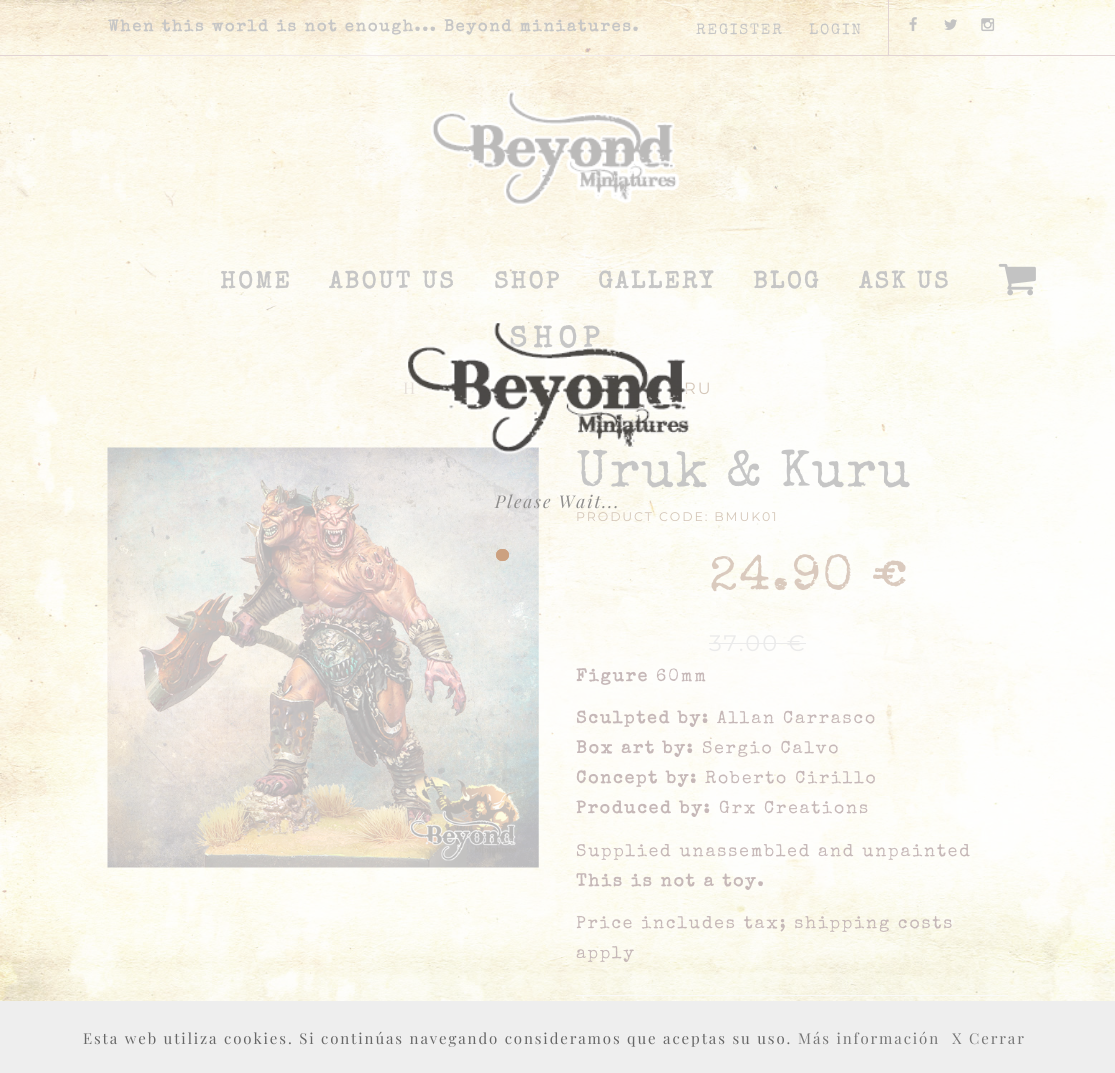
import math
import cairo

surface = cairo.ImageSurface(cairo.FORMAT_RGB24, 1115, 1073)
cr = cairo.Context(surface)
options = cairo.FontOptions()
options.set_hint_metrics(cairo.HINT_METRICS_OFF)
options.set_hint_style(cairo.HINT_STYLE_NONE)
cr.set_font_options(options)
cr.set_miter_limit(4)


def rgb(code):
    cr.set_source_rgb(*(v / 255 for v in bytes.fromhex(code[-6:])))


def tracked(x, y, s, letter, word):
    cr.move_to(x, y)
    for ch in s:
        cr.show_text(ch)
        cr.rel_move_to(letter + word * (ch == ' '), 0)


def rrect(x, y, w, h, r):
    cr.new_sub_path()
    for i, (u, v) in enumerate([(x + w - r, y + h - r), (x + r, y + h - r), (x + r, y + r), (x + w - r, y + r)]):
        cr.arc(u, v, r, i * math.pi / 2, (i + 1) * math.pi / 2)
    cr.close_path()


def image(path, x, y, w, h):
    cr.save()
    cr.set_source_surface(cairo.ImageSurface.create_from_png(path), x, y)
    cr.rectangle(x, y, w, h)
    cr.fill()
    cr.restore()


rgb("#ffffff")
cr.paint()
image("img/1.png", 0, 0, 1115, 1001)
for x, y, w, h, color in [
    (0, 55, 1115, 1, "#e2d4d4"),
    (108, 55, 532, 1, "#f1eaea"),
    (888, 0, 1, 56, "#e2d4d4"),
]:
    rgb(color)
    cr.rectangle(x, y, w, h)
    cr.fill()
image("img/2.png", 909, 17, 8, 15)
image("img/3.png", 944, 19, 14, 11)
image("img/4.png", 981, 18, 14, 14)
image("img/5.png", 430, 90, 250, 117)
image("img/6.png", 998, 263, 38, 33)
image("img/7.png", 471, 384, 6, 9)
image("img/8.png", 554, 384, 5, 9)
image("img/9.png", 107, 447, 432, 421)
for x, y, w, h, color in [
    (709, 643, 97, 1, "#ebebeb"),
    (576, 995, 432, 1, "#fafafa"),
    (0, 1001, 1115, 72, "#eeeeee"),
]:
    rgb(color)
    cr.rectangle(x, y, w, h)
    cr.fill()
cr.set_source_rgba(0.8, 0.627, 0.498, 0.72)
rrect(496, 549, 13, 12, 6)
cr.fill()
rrect(496, 549, 13, 12, 6)
cr.fill()
rrect(496, 549, 13, 12, 6)
cr.fill()
cr.select_font_face("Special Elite", cairo.FONT_SLANT_NORMAL, cairo.FONT_WEIGHT_BOLD)
cr.set_font_size(16.25)
rgb("#c6c6c6")
tracked(108, 31, "When this world is not enough... Beyond miniatures.", 1.88, 0)
cr.select_font_face("Special Elite")
cr.set_font_size(15)
tracked(696, 34, "REGISTER", 1.88, 0)
tracked(809, 34, "LOGIN", 1.88, 0)
cr.select_font_face("Special Elite", cairo.FONT_SLANT_NORMAL, cairo.FONT_WEIGHT_BOLD)
cr.set_font_size(23.75)
for x, y, s in [
    (220, 288, "HOME"),
    (329, 288, "ABOUT US"),
    (494, 288, "SHOP"),
    (598, 288, "GALLERY"),
    (753, 288, "BLOG"),
    (859, 288, "ASK US"),
]:
    tracked(x, y, s, 2.5, 0)
cr.set_font_size(30)
tracked(509, 347, "SHOP", 6, 0)
cr.select_font_face("Playfair Display")
cr.set_font_size(16.25)
rgb("#e7e0d9")
tracked(403, 394, "H", 1.88, 0)
cr.select_font_face("Montserrat")
rgb("#d4c6b8")
tracked(684, 394, "RU", 1.88, 0)
cr.select_font_face("Special Elite")
cr.set_font_size(51.25)
rgb("#c6c6c6")
tracked(576, 486, "Uruk & Kuru", 1.88, 0)
cr.select_font_face("Montserrat")
cr.set_font_size(12.5)
rgb("#d4c6b8")
tracked(576, 521, "PRODUCT CODE: BMUK01", 1.88, 0)
cr.select_font_face("Special Elite")
cr.set_font_size(50)
rgb("#dacabe")
tracked(709, 590, "24.90 €", 1.88, 0)
cr.select_font_face("Montserrat")
cr.set_font_size(22.5)
rgb("#ebebeb")
tracked(709, 651, "37.00 €", 1.88, 0)
cr.select_font_face("Special Elite", cairo.FONT_SLANT_NORMAL, cairo.FONT_WEIGHT_BOLD)
cr.set_font_size(17.5)
rgb("#c6b8b8")
tracked(576, 681, "Figure", 1.88, 0)
cr.select_font_face("Special Elite")
tracked(656, 681, "60mm", 1.88, 0)
cr.select_font_face("Special Elite", cairo.FONT_SLANT_NORMAL, cairo.FONT_WEIGHT_BOLD)
tracked(576, 723, "Sculpted by:", 1.88, 0)
cr.select_font_face("Special Elite")
tracked(717, 723, "Allan Carrasco", 1.88, 0)
cr.select_font_face("Special Elite", cairo.FONT_SLANT_NORMAL, cairo.FONT_WEIGHT_BOLD)
tracked(576, 753, "Box art by:", 1.88, 0)
cr.select_font_face("Special Elite")
tracked(702, 753, "Sergio Calvo", 1.88, 0)
cr.select_font_face("Special Elite", cairo.FONT_SLANT_NORMAL, cairo.FONT_WEIGHT_BOLD)
tracked(576, 783, "Concept by:", 1.88, 0)
cr.select_font_face("Special Elite")
tracked(705, 783, "Roberto Cirillo", 1.88, 0)
cr.select_font_face("Special Elite", cairo.FONT_SLANT_NORMAL, cairo.FONT_WEIGHT_BOLD)
tracked(576, 813, "Produced by:", 1.88, 0)
cr.select_font_face("Special Elite")
tracked(719, 813, "Grx Creations", 1.88, 0)
tracked(576, 856, "Supplied unassembled and unpainted", 1.88, 0)
cr.select_font_face("Special Elite", cairo.FONT_SLANT_NORMAL, cairo.FONT_WEIGHT_BOLD)
tracked(576, 886, "This is not a toy.", 1.88, 0)
cr.select_font_face("Special Elite")
tracked(576, 928, "Price includes tax; shipping costs", 1.88, 0)
tracked(576, 958, "apply", 1.88, 0)
cr.select_font_face("Playfair Display")
cr.set_font_size(15)
rgb("#666666")
tracked(83, 1044, "Esta web utiliza cookies. Si continúas navegando consideramos que aceptas su uso.", 1.88, 0)
rgb("#757575")
tracked(798, 1044, "Más información", 1.88, 0)
tracked(952, 1044, "X Cerrar", 1.88, 0)
image("img/10.png", 405, 320, 285, 135)
cr.select_font_face("Playfair Display", cairo.FONT_SLANT_ITALIC)
cr.set_font_size(17.5)
rgb("#8e8d8c")
tracked(495, 508, "Please Wait...", 1.88, 0)
surface.write_to_png("page.png")
